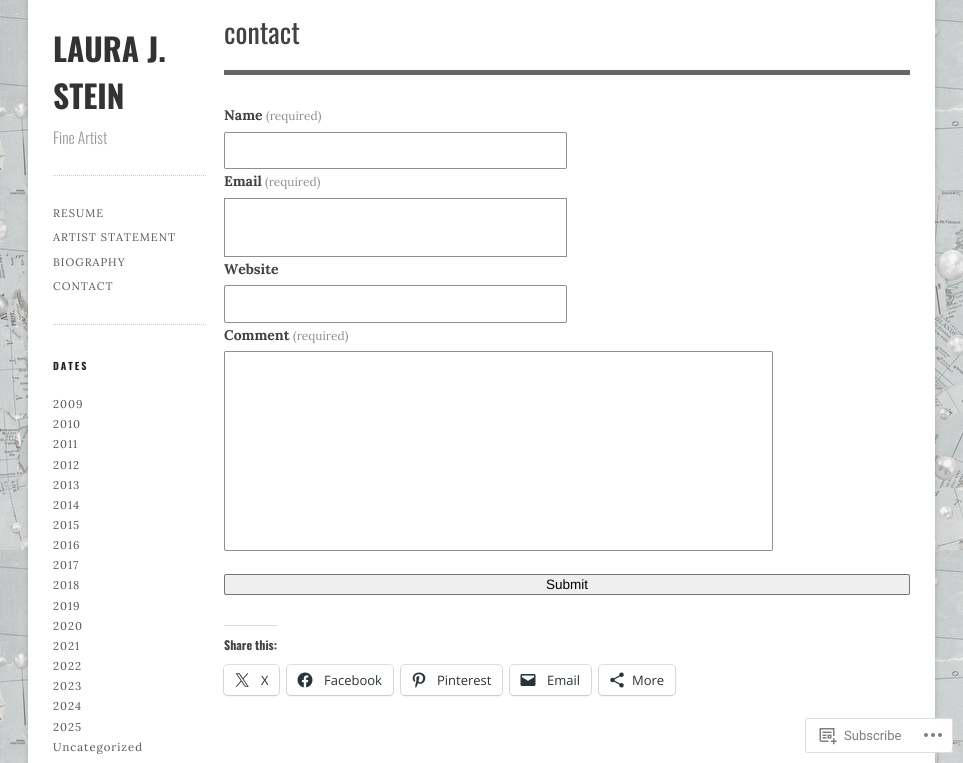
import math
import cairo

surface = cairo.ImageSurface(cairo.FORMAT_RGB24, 963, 763)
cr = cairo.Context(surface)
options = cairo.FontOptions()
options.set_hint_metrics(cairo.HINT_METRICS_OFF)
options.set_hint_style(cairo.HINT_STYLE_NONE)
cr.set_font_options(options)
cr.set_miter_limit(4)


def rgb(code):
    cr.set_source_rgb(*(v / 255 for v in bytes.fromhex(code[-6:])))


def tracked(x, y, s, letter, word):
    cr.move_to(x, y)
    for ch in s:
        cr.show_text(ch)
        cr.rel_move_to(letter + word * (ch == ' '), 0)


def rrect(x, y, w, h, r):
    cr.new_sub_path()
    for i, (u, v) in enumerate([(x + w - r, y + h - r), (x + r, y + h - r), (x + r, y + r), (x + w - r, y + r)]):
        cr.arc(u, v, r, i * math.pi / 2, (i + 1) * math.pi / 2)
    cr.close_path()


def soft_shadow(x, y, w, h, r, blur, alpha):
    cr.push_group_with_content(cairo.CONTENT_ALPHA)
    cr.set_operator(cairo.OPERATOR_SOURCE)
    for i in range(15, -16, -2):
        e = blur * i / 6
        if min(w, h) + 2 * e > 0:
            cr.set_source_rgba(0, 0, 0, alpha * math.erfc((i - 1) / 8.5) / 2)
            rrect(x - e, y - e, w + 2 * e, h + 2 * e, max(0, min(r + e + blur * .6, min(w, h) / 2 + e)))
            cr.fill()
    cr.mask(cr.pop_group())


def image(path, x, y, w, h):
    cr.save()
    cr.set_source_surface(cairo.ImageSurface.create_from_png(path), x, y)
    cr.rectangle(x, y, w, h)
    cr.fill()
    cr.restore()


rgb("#ffffff")
cr.paint()
image("img/1.png", 0, 0, 963, 763)
rgb("#646464")
soft_shadow(28, 2, 907, 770, 0, 3, 0.3)
rgb("#ffffff")
cr.rectangle(28, 0, 907, 763)
cr.fill()
cr.new_path()
cr.move_to(53, 175.5)
cr.line_to(207, 175.5)
rgb("#cccccc")
cr.set_line_width(1)
cr.set_dash([1, 1])
cr.stroke()
cr.new_path()
cr.move_to(53, 324.5)
cr.line_to(207, 324.5)
cr.stroke()
rgb("#666666")
cr.rectangle(224, 70, 686, 5)
cr.fill()
rrect(224.5, 132.5, 342, 36, 1.5)
rgb("#8c8f94")
cr.set_dash([])
cr.stroke()
cr.rectangle(224.5, 198.5, 342, 58)
cr.stroke()
rrect(224.5, 285.5, 342, 37, 1.5)
cr.stroke()
rrect(224.5, 351.5, 548, 199, 1.5)
cr.stroke()
rgb("#efefef")
rrect(224.5, 574.5, 685, 20, 1.5)
cr.fill_preserve()
rgb("#767676")
cr.stroke()
rgb("#dcdcde")
cr.rectangle(224, 625, 53, 1)
cr.fill()
rrect(223.5, 664.5, 56, 31, 4.5)
rgb("#e0e0e0")
cr.stroke()
rgb("#000000")
soft_shadow(224, 666, 55, 30, 4, 1, 0.12)
rgb("#ffffff")
rrect(224, 665, 55, 30, 4)
cr.fill()
image("img/2.png", 235, 673, 14, 14)
rrect(286.5, 664.5, 107, 31, 4.5)
rgb("#e0e0e0")
cr.stroke()
rgb("#000000")
soft_shadow(287, 666, 106, 30, 4, 1, 0.12)
rgb("#ffffff")
rrect(287, 665, 106, 30, 4)
cr.fill()
image("img/3.png", 297, 672, 16, 16)
rrect(400.5, 664.5, 102, 31, 4.5)
rgb("#e0e0e0")
cr.stroke()
rgb("#000000")
soft_shadow(401, 666, 101, 30, 4, 1, 0.12)
rgb("#ffffff")
rrect(401, 665, 101, 30, 4)
cr.fill()
image("img/4.png", 412, 672, 14, 16)
rrect(509.5, 664.5, 82, 31, 4.5)
rgb("#e0e0e0")
cr.stroke()
rgb("#000000")
soft_shadow(510, 666, 81, 30, 4, 1, 0.12)
rgb("#ffffff")
rrect(510, 665, 81, 30, 4)
cr.fill()
image("img/5.png", 520, 674, 16, 12)
rrect(598.5, 664.5, 77, 31, 4.5)
rgb("#e0e0e0")
cr.stroke()
rgb("#000000")
soft_shadow(599, 666, 76, 30, 4, 1, 0.12)
rgb("#ffffff")
rrect(599, 665, 76, 30, 4)
cr.fill()
image("img/6.png", 610, 672, 14, 16)
cr.set_source_rgba(1, 1, 1, 0.98)
rrect(805, 718, 148, 35, 3)
cr.fill()
rrect(805.5, 718.5, 147, 34, 2.5)
cr.set_source_rgba(0.863, 0.863, 0.871, 0.98)
cr.stroke()
image("img/7.png", 819, 728, 18, 17)
image("img/8.png", 924, 733, 18, 4)
cr.select_font_face("Oswald", cairo.FONT_SLANT_NORMAL, cairo.FONT_WEIGHT_BOLD)
cr.set_font_size(31.5)
rgb("#333333")
cr.move_to(53, 62)
cr.show_text("LAURA J.")
cr.move_to(53, 109)
cr.show_text("STEIN")
cr.select_font_face("Oswald Light")
cr.set_font_size(15.5)
rgb("#999999")
cr.move_to(53, 144)
cr.show_text("Fine Artist")
cr.select_font_face("Lora")
cr.set_font_size(11)
rgb("#555555")
for x, y, s in [
    (53, 217, "RESUME"),
    (53, 241, "ARTIST STATEMENT"),
    (53, 266, "BIOGRAPHY"),
    (53, 290, "CONTACT"),
]:
    tracked(x, y, s, 1, 0)
cr.select_font_face("Oswald")
cr.set_font_size(28)
rgb("#424242")
cr.move_to(224, 44)
cr.show_text("contact")
cr.select_font_face("Lora", cairo.FONT_SLANT_NORMAL, cairo.FONT_WEIGHT_BOLD)
cr.set_font_size(14)
cr.move_to(224, 120)
cr.show_text("Name")
cr.select_font_face("Lora")
cr.set_font_size(12)
rgb("#8e8e8e")
cr.move_to(266, 120)
cr.show_text("(required)")
cr.select_font_face("Lora", cairo.FONT_SLANT_NORMAL, cairo.FONT_WEIGHT_BOLD)
cr.set_font_size(14)
rgb("#424242")
cr.move_to(224, 186)
cr.show_text("Email")
cr.select_font_face("Lora")
cr.set_font_size(12)
rgb("#8e8e8e")
cr.move_to(265, 186)
cr.show_text("(required)")
cr.select_font_face("Lora", cairo.FONT_SLANT_NORMAL, cairo.FONT_WEIGHT_BOLD)
cr.set_font_size(14)
rgb("#424242")
cr.move_to(224, 274)
cr.show_text("Website")
cr.move_to(224, 340)
cr.show_text("Comment")
cr.select_font_face("Lora")
cr.set_font_size(12)
rgb("#8e8e8e")
cr.move_to(293, 340)
cr.show_text("(required)")
cr.select_font_face("Liberation Sans")
cr.set_font_size(13.5)
rgb("#000000")
cr.move_to(546, 589)
cr.show_text("Submit")
cr.select_font_face("Oswald", cairo.FONT_SLANT_NORMAL, cairo.FONT_WEIGHT_BOLD)
cr.set_font_size(12)
rgb("#424242")
cr.move_to(224, 650)
cr.show_text("Share this:")
cr.select_font_face("Open Sans")
cr.set_font_size(13)
rgb("#2c3338")
for x, y, s in [
    (261, 685, "X"),
    (324, 685, "Facebook"),
    (437, 685, "Pinterest"),
    (547, 685, "Email"),
    (632, 685, "More"),
]:
    cr.move_to(x, y)
    cr.show_text(s)
cr.select_font_face("Oswald", cairo.FONT_SLANT_NORMAL, cairo.FONT_WEIGHT_BOLD)
cr.set_font_size(10)
rgb("#222222")
tracked(53, 370, "DATES", 2, 0)
cr.select_font_face("Lora")
cr.set_font_size(11.25)
rgb("#555555")
for x, y, s in [
    (53, 408, "2009"),
    (53, 428, "2010"),
    (53, 448, "2011"),
    (53, 469, "2012"),
    (53, 489, "2013"),
    (53, 509, "2014"),
    (53, 529, "2015"),
    (53, 549, "2016"),
    (53, 569, "2017"),
    (53, 589, "2018"),
    (53, 610, "2019"),
    (53, 630, "2020"),
    (53, 650, "2021"),
    (53, 670, "2022"),
    (53, 690, "2023"),
    (53, 710, "2024"),
    (53, 731, "2025"),
    (53, 751, "Uncategorized"),
]:
    tracked(x, y, s, 1, 0)
cr.select_font_face("Roboto")
cr.set_font_size(13)
rgb("#7b7f85")
cr.move_to(844, 740)
cr.show_text("Subscribe")
surface.write_to_png("page.png")
